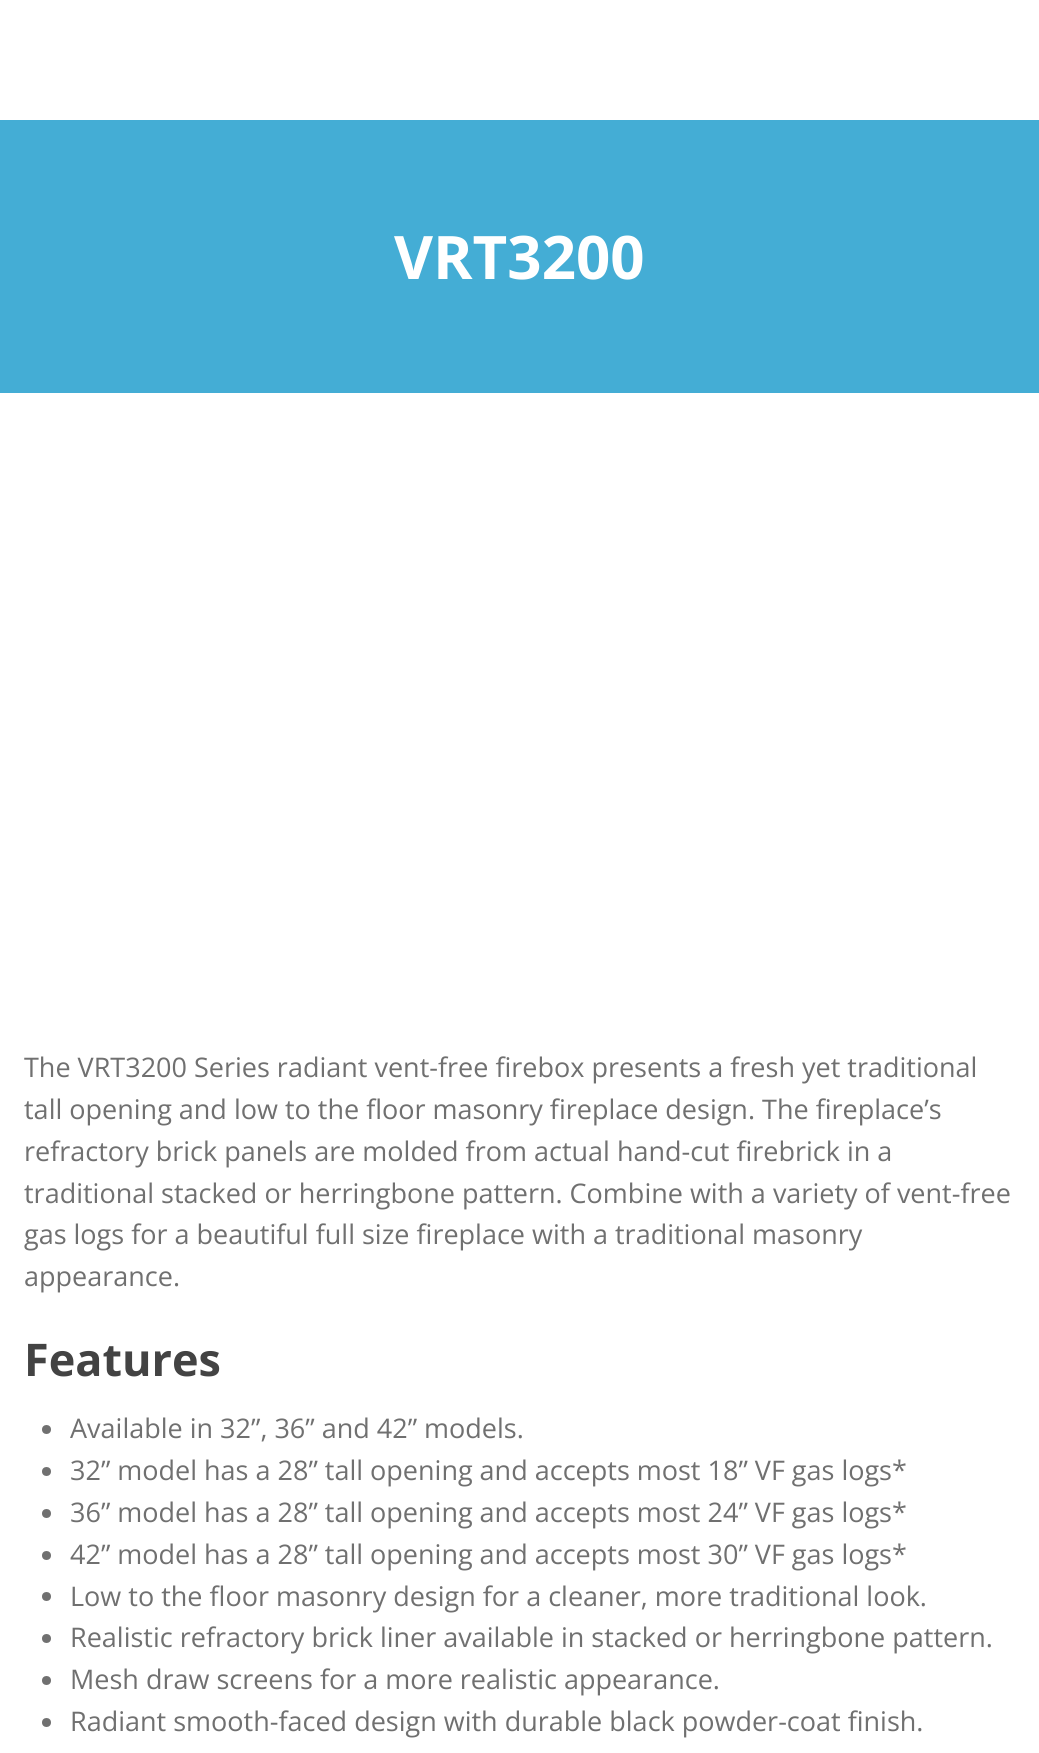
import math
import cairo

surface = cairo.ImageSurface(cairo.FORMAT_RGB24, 1039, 1753)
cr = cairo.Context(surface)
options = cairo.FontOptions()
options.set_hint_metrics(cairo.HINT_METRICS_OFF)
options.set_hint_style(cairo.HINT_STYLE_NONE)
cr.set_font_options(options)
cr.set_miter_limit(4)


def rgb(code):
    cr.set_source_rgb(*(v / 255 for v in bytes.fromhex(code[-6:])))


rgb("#ffffff")
cr.paint()
rgb("#44add5")
cr.rectangle(0, 120, 1039, 273)
cr.fill()
rgb("#707070")
cr.arc(46.5, 1429.5, 4.5, 0, 2 * math.pi)
cr.fill()
cr.arc(46.5, 1471.5, 4.5, 0, 2 * math.pi)
cr.fill()
cr.arc(46.5, 1513.5, 4.5, 0, 2 * math.pi)
cr.fill()
cr.arc(46.5, 1555.5, 4.5, 0, 2 * math.pi)
cr.fill()
cr.arc(46.5, 1596.5, 4.5, 0, 2 * math.pi)
cr.fill()
cr.arc(46.5, 1638.5, 4.5, 0, 2 * math.pi)
cr.fill()
cr.arc(46.5, 1680.5, 4.5, 0, 2 * math.pi)
cr.fill()
cr.arc(46.5, 1722.5, 4.5, 0, 2 * math.pi)
cr.fill()
cr.select_font_face("Open Sans", cairo.FONT_SLANT_NORMAL, cairo.FONT_WEIGHT_BOLD)
cr.set_font_size(60)
rgb("#ffffff")
cr.move_to(394, 279)
cr.show_text("VRT3200")
cr.select_font_face("Open Sans")
cr.set_font_size(27)
rgb("#707070")
for x, y, s in [
    (24, 1077, "The VRT3200 Series radiant vent-free firebox presents a fresh yet traditional"),
    (24, 1119, "tall opening and low to the floor masonry fireplace design. The fireplace’s"),
    (24, 1161, "refractory brick panels are molded from actual hand-cut firebrick in a"),
    (24, 1203, "traditional stacked or herringbone pattern. Combine with a variety of vent-free"),
    (24, 1244, "gas logs for a beautiful full size fireplace with a traditional masonry"),
    (24, 1286, "appearance."),
]:
    cr.move_to(x, y)
    cr.show_text(s)
cr.select_font_face("Open Sans", cairo.FONT_SLANT_NORMAL, cairo.FONT_WEIGHT_BOLD)
cr.set_font_size(45)
rgb("#434343")
cr.move_to(24, 1376)
cr.show_text("Features")
cr.select_font_face("Open Sans")
cr.set_font_size(27)
rgb("#707070")
for x, y, s in [
    (70, 1438, "Available in 32”, 36” and 42” models."),
    (70, 1480, "32” model has a 28” tall opening and accepts most 18” VF gas logs*"),
    (70, 1522, "36” model has a 28” tall opening and accepts most 24” VF gas logs*"),
    (70, 1564, "42” model has a 28” tall opening and accepts most 30” VF gas logs*"),
    (70, 1606, "Low to the floor masonry design for a cleaner, more traditional look."),
    (70, 1647, "Realistic refractory brick liner available in stacked or herringbone pattern."),
    (70, 1689, "Mesh draw screens for a more realistic appearance."),
    (70, 1731, "Radiant smooth-faced design with durable black powder-coat finish."),
]:
    cr.move_to(x, y)
    cr.show_text(s)
surface.write_to_png("page.png")
